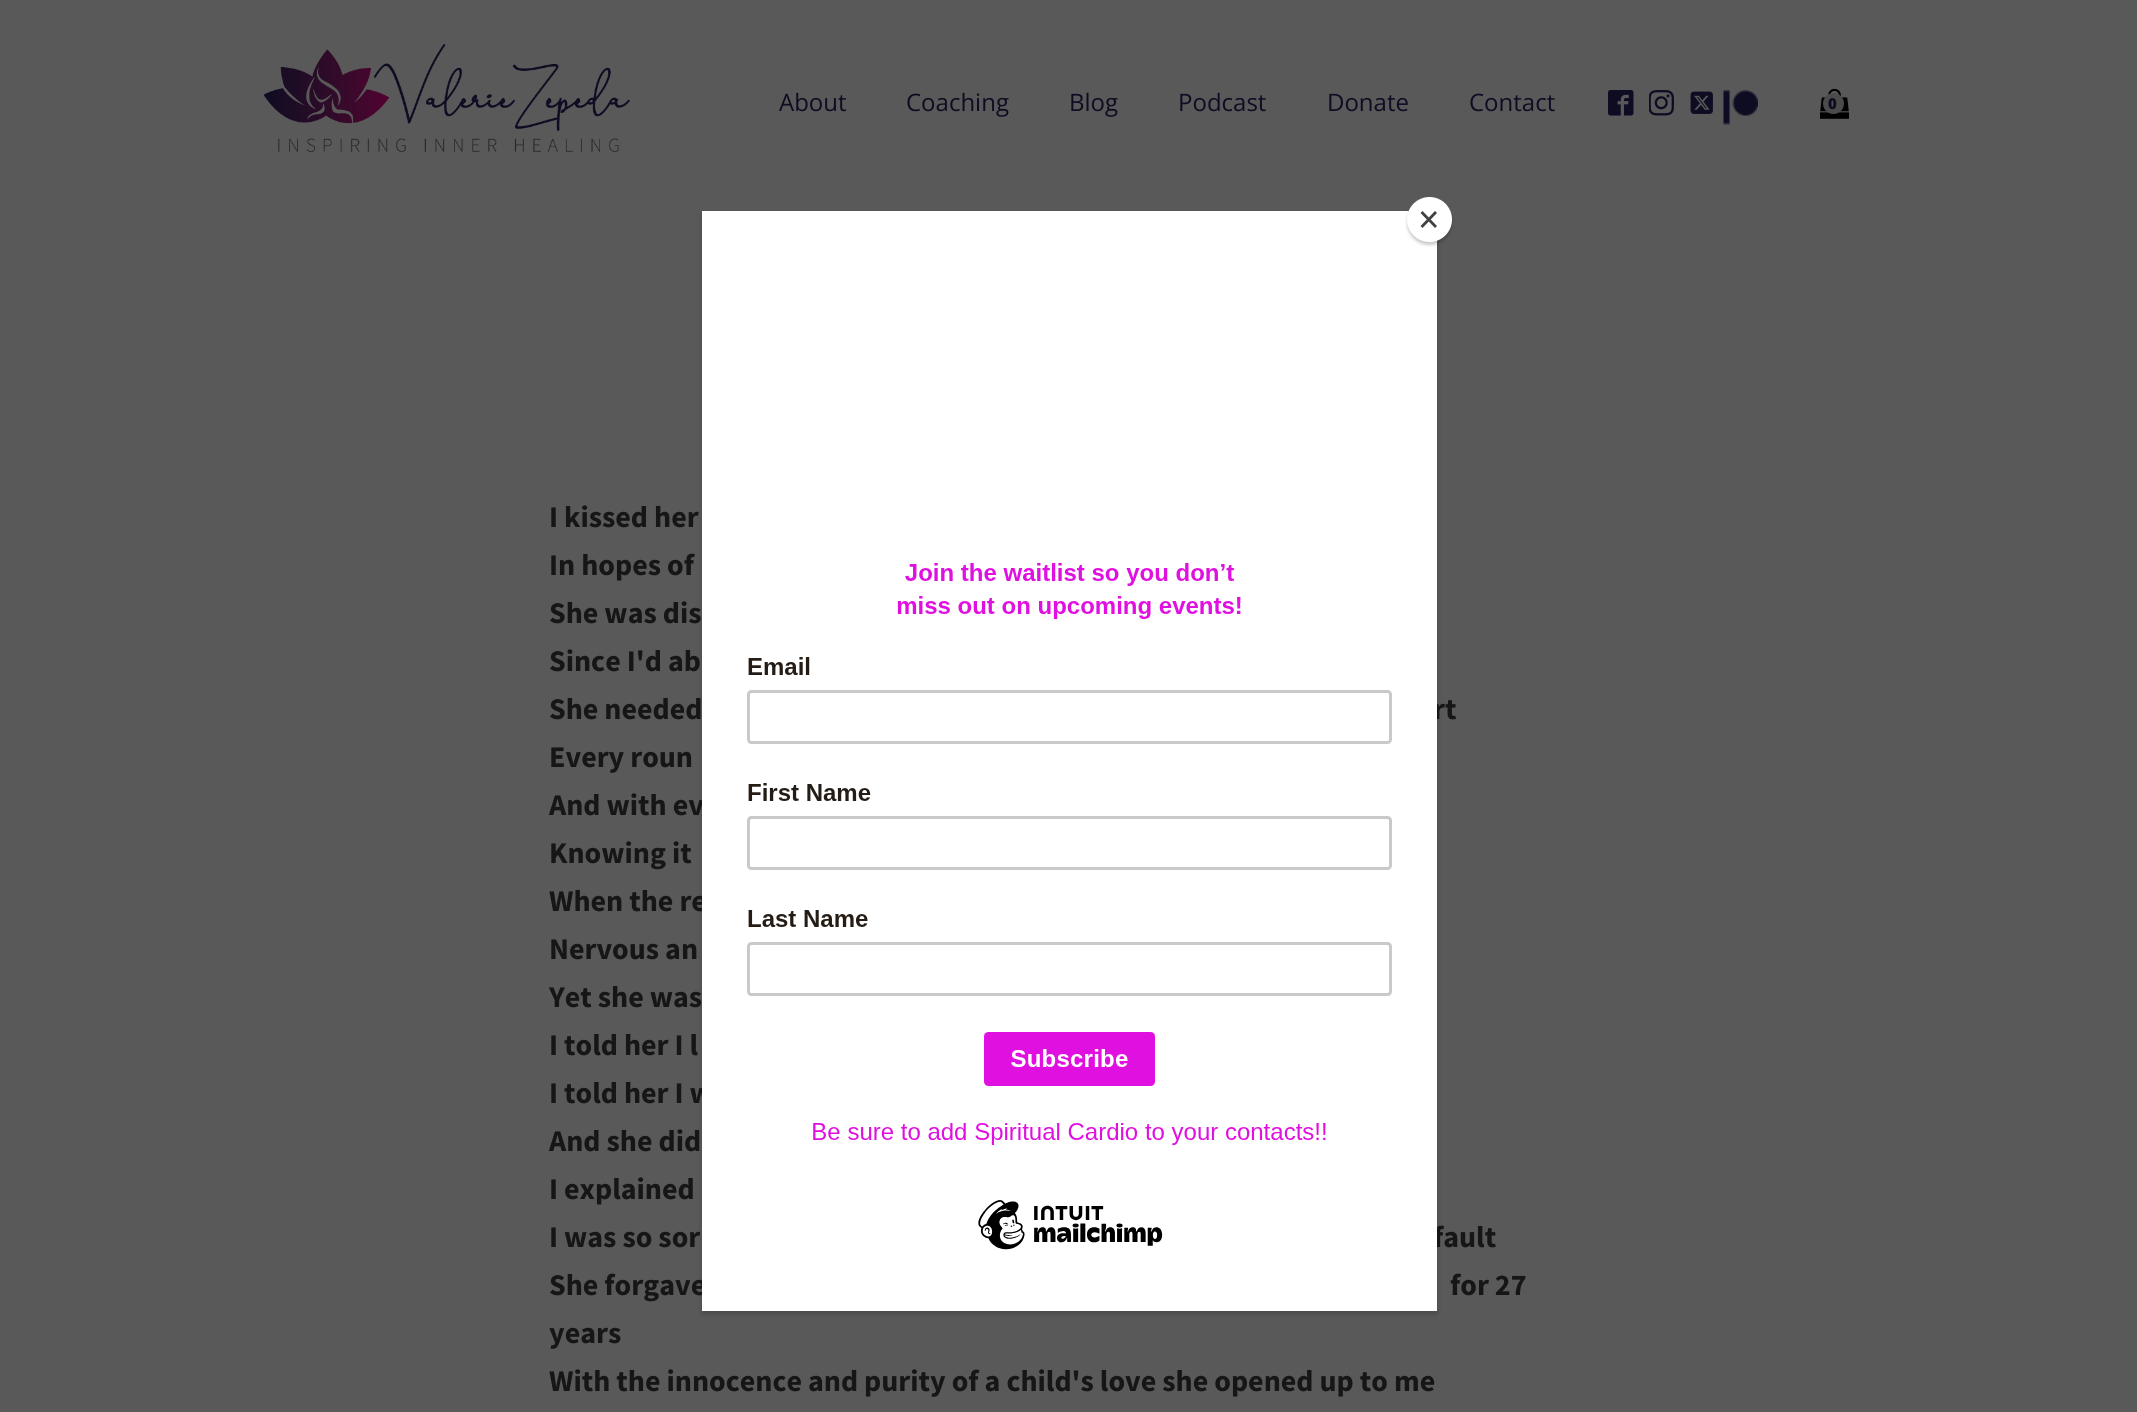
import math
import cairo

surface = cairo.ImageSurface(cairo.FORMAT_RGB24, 2137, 1412)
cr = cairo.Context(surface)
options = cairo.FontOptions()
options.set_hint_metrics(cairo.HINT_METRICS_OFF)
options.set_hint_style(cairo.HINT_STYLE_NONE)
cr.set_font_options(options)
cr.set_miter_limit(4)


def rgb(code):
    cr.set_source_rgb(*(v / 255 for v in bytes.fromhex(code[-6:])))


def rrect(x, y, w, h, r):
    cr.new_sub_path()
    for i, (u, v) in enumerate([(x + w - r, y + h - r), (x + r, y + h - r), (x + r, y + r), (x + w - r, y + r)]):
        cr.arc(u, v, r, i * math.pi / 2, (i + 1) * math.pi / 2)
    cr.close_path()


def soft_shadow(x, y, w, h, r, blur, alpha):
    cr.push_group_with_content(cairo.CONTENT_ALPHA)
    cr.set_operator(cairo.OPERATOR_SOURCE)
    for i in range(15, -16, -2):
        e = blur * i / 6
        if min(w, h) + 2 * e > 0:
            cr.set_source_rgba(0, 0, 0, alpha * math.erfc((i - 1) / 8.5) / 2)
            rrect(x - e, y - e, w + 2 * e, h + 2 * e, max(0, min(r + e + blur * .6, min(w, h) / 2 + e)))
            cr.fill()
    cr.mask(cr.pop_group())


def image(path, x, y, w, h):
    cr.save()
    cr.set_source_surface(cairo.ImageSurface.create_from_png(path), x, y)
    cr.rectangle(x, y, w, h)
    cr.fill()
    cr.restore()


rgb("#595959")
cr.paint()
image("img/1.png", 263, 43, 367, 109)
image("img/2.png", 1608, 90, 26, 26)
image("img/3.png", 1649, 90, 25, 26)
image("img/4.png", 1690, 91, 23, 23)
image("img/5.png", 1723, 90, 35, 35)
image("img/6.png", 1820, 88, 29, 31)
rgb("#4b4b4b")
cr.arc(1833.5, 103.5, 10.5, 0, 2 * math.pi)
cr.fill()
rgb("#000000")
soft_shadow(702, 215, 735, 1099, 0, 3, 0.2)
cr.select_font_face("Open Sans")
cr.set_font_size(24)
rgb("#0e0c22")
for x, y, s in [
    (779, 111, "About"),
    (906, 111, "Coaching"),
    (1069, 111, "Blog"),
    (1178, 111, "Podcast"),
    (1327, 111, "Donate"),
    (1469, 111, "Contact"),
]:
    cr.move_to(x, y)
    cr.show_text(s)
cr.select_font_face("Open Sans ExtraBold")
cr.set_font_size(15)
cr.move_to(1828, 109)
cr.show_text("0")
cr.select_font_face("Source Sans Pro", cairo.FONT_SLANT_NORMAL, cairo.FONT_WEIGHT_BOLD)
cr.set_font_size(30)
rgb("#161616")
for x, y, s in [
    (549, 527, "I kissed her"),
    (549, 575, "In hopes of"),
    (549, 623, "She was dis"),
    (549, 671, "Since I'd ab"),
    (549, 719, "She needed"),
    (1433, 719, "rt"),
    (549, 767, "Every roun"),
    (549, 815, "And with ev"),
    (549, 863, "Knowing it"),
    (549, 911, "When the re"),
    (549, 959, "Nervous an"),
    (549, 1007, "Yet she was"),
    (549, 1055, "I told her I l"),
    (549, 1103, "I told her I w"),
    (549, 1151, "And she did"),
    (549, 1199, "I explained"),
    (549, 1247, "I was so sor"),
    (1433, 1247, "fault"),
    (549, 1295, "She forgave"),
]:
    cr.move_to(x, y)
    cr.show_text(s)
image("img/7.png", 702, 211, 735, 1100)
rgb("#000000")
soft_shadow(1407, 200, 45, 45, 22.5, 1.5, 0.2)
rgb("#ffffff")
cr.arc(1429.5, 219.5, 22.5, 0, 2 * math.pi)
cr.fill()
rgb("#414141")
cr.new_path()
cr.move_to(1435, 211)
cr.line_to(1437, 213)
cr.line_to(1422.5, 228)
cr.line_to(1420.5, 226)
cr.close_path()
cr.fill()
cr.new_path()
cr.move_to(1420.5, 213)
cr.line_to(1422.5, 211)
cr.line_to(1437, 226)
cr.line_to(1435, 228)
cr.close_path()
cr.fill()
rgb("#161616")
for x, y, s in [
    (1450, 1295, "for 27"),
    (549, 1343, "years"),
    (549, 1391, "With the innocence and purity of a child's love she opened up to me"),
]:
    cr.move_to(x, y)
    cr.show_text(s)
surface.write_to_png("page.png")
